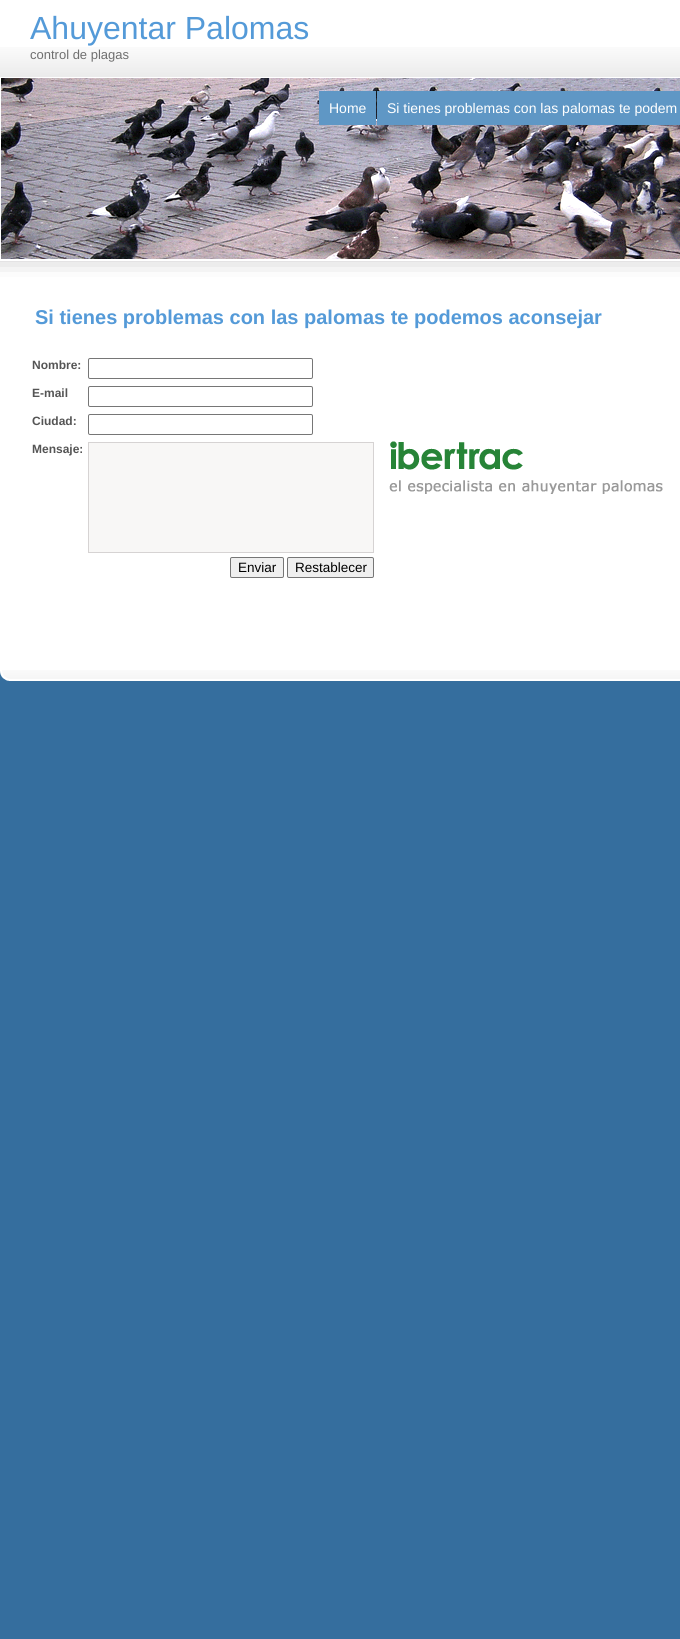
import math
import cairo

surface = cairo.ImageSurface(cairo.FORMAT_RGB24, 680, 1639)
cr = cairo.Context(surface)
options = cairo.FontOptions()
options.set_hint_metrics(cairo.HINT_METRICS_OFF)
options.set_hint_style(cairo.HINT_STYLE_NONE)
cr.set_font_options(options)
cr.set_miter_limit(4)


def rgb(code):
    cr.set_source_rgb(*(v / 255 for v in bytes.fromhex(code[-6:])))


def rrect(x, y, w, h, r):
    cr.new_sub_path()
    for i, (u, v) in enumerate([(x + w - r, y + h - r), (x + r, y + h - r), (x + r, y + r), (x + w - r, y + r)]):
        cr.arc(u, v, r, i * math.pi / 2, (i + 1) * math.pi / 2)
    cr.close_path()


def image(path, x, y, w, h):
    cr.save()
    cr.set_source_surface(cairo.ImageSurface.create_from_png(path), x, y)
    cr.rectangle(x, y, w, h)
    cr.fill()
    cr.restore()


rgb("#356e9e")
cr.paint()
rgb("#ffffff")
cr.rectangle(0, 0, 680, 47)
cr.fill()
image("img/1.png", 0, 47, 680, 30)
image("img/2.png", 0, 77, 680, 204)
for x, y, w, h, color in [
    (319, 91, 57, 34, "#5f97c5"),
    (377, 91, 303, 34, "#5f97c5"),
    (0, 281, 680, 389, "#ffffff"),
]:
    rgb(color)
    cr.rectangle(x, y, w, h)
    cr.fill()
rrect(88.5, 358.5, 224, 20, 1.5)
rgb("#767676")
cr.set_line_width(1)
cr.stroke()
rrect(88.5, 386.5, 224, 20, 1.5)
cr.stroke()
rrect(88.5, 414.5, 224, 20, 1.5)
cr.stroke()
rgb("#f8f7f6")
cr.rectangle(88.5, 442.5, 285, 110)
cr.fill_preserve()
rgb("#d6d3d3")
cr.stroke()
rgb("#efefef")
rrect(230.5, 557.5, 53, 20, 1.5)
cr.fill_preserve()
rgb("#767676")
cr.stroke()
rgb("#efefef")
rrect(287.5, 557.5, 86, 20, 1.5)
cr.fill_preserve()
rgb("#767676")
cr.stroke()
image("img/3.png", 389, 441, 274, 53)
image("img/4.png", 0, 670, 680, 23)
cr.select_font_face("Liberation Sans")
cr.set_font_size(32)
rgb("#549ad8")
cr.move_to(30, 39)
cr.show_text("Ahuyentar Palomas")
cr.set_font_size(13)
rgb("#6f6f6f")
cr.move_to(30, 59)
cr.show_text("control de plagas")
cr.set_font_size(14)
rgb("#ffffff")
cr.move_to(329, 113)
cr.show_text("Home")
cr.move_to(387, 113)
cr.show_text("Si tienes problemas con las palomas te podem")
cr.select_font_face("Liberation Sans", cairo.FONT_SLANT_NORMAL, cairo.FONT_WEIGHT_BOLD)
cr.set_font_size(20)
rgb("#549ad8")
cr.move_to(35, 324)
cr.show_text("Si tienes problemas con las palomas te podemos aconsejar")
cr.set_font_size(12)
rgb("#555555")
for x, y, s in [
    (32, 369, "Nombre:"),
    (32, 397, "E-mail"),
    (32, 425, "Ciudad:"),
    (32, 453, "Mensaje:"),
]:
    cr.move_to(x, y)
    cr.show_text(s)
cr.select_font_face("Liberation Sans")
cr.set_font_size(13.5)
rgb("#000000")
cr.move_to(238, 572)
cr.show_text("Enviar")
cr.move_to(295, 572)
cr.show_text("Restablecer")
surface.write_to_png("page.png")
